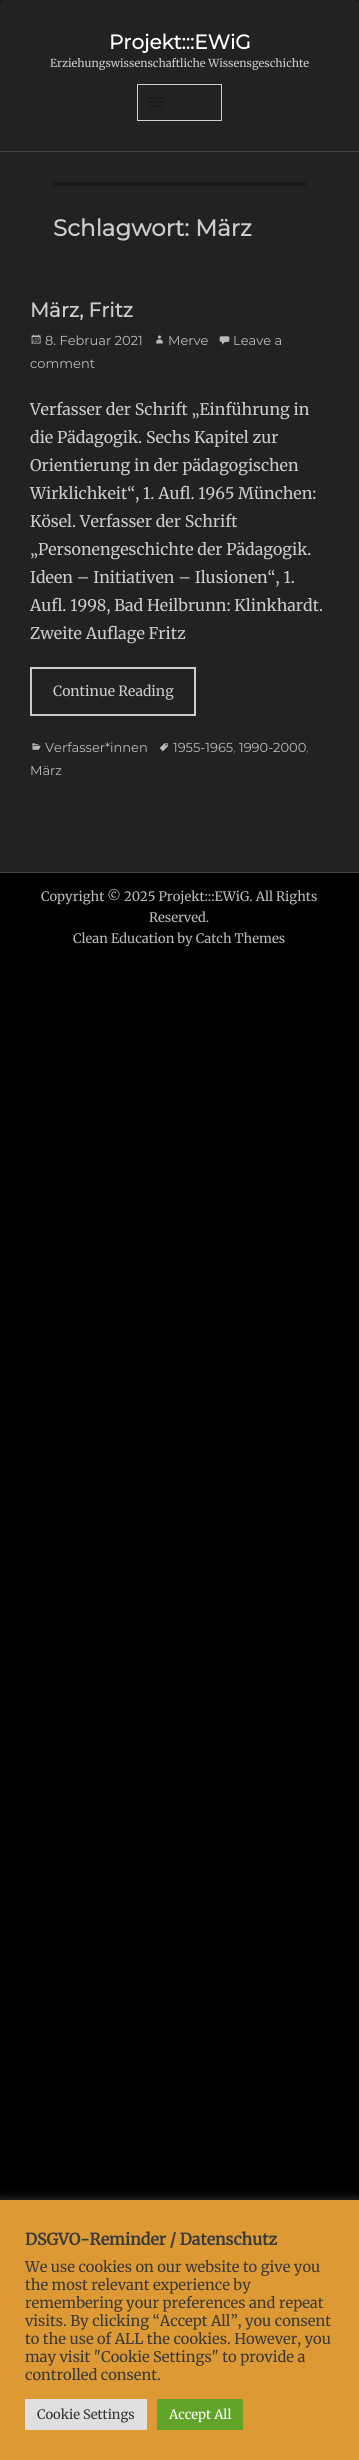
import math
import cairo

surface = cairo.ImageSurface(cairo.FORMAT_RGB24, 359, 2460)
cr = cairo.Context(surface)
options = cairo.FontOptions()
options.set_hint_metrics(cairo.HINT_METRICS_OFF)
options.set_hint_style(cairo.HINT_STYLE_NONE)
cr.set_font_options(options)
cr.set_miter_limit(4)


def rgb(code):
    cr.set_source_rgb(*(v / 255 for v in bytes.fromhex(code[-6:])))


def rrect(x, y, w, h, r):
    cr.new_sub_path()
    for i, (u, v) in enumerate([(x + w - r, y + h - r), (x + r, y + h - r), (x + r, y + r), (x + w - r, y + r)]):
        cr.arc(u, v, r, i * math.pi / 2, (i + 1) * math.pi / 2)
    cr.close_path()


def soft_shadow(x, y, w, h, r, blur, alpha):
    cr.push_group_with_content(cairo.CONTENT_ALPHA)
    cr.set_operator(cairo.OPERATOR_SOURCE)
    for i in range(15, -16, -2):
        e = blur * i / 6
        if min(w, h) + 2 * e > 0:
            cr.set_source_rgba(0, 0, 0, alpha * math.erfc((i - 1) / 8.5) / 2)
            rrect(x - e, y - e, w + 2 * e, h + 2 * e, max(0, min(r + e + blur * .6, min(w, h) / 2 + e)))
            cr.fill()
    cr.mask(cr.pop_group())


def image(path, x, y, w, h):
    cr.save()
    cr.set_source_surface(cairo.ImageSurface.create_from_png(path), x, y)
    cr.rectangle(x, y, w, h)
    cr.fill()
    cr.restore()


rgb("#000000")
cr.paint()
rgb("#222222")
rrect(0, 0, 359, 973, 2)
cr.fill()
rgb("#444444")
cr.rectangle(0, 151, 359, 1)
cr.fill()
cr.rectangle(137.5, 84.5, 84, 36)
rgb("#d1d1d1")
cr.set_line_width(1)
cr.stroke()
image("img/1.png", 149, 97, 14, 10)
rgb("#444444")
cr.rectangle(0, 872, 359, 1)
cr.fill()
rgb("#1a1a1a")
cr.rectangle(53, 182, 253, 4)
cr.fill()
image("img/2.png", 219, 336, 11, 9)
image("img/3.png", 31, 334, 10, 10)
image("img/4.png", 156, 335, 7, 9)
cr.rectangle(31, 668, 164, 47)
rgb("#cccccc")
cr.set_line_width(2)
cr.stroke()
image("img/5.png", 159, 743, 9, 9)
image("img/6.png", 32, 743, 9, 7)
rgb("#000000")
cr.rectangle(0, 873, 359, 100)
cr.fill()
rgb("#acabab")
soft_shadow(0, 2199, 359, 260, 0, 5, 0.3)
for x, y, w, h, color in [
    (0, 2200, 359, 260, "#dd9933"),
    (25, 2399, 122, 31, "#dedfe0"),
    (157, 2399, 86, 31, "#61a229"),
]:
    rgb(color)
    cr.rectangle(x, y, w, h)
    cr.fill()
cr.select_font_face("Montserrat", cairo.FONT_SLANT_NORMAL, cairo.FONT_WEIGHT_BOLD)
cr.set_font_size(20)
rgb("#ffffff")
cr.move_to(109, 49)
cr.show_text("Projekt:::EWiG")
cr.select_font_face("Merriweather Light")
cr.set_font_size(11)
rgb("#cccccc")
cr.move_to(50, 67)
cr.show_text("Erziehungswissenschaftliche Wissensgeschichte")
cr.select_font_face("Montserrat", cairo.FONT_SLANT_NORMAL, cairo.FONT_WEIGHT_BOLD)
cr.set_font_size(23)
cr.move_to(53, 236)
cr.show_text("Schlagwort: März")
cr.set_font_size(20)
cr.move_to(30, 317)
cr.show_text("März, Fritz")
cr.select_font_face("Montserrat Thin")
cr.set_font_size(13)
rgb("#bbbbbb")
for x, y, s in [
    (233, 345, "Leave a"),
    (30, 368, "comment"),
    (45, 345, "8. Februar 2021"),
    (168, 345, "Merve"),
]:
    cr.move_to(x, y)
    cr.show_text(s)
cr.select_font_face("Merriweather Light")
cr.set_font_size(16)
rgb("#cccccc")
for x, y, s in [
    (30, 415, "Verfasser der Schrift „Einführung in"),
    (30, 443, "die Pädagogik. Sechs Kapitel zur"),
    (30, 471, "Orientierung in der pädagogischen"),
    (30, 499, "Wirklichkeit“, 1. Aufl. 1965 München:"),
    (30, 527, "Kösel. Verfasser der Schrift"),
    (30, 555, "„Personengeschichte der Pädagogik."),
    (30, 583, "Ideen – Initiativen – Ilusionen“, 1."),
    (30, 611, "Aufl. 1998, Bad Heilbrunn: Klinkhardt."),
    (30, 639, "Zweite Auflage Fritz"),
]:
    cr.move_to(x, y)
    cr.show_text(s)
cr.set_font_size(14)
cr.move_to(53, 696)
cr.show_text("Continue Reading")
cr.select_font_face("Montserrat Thin")
cr.set_font_size(13)
rgb("#bbbbbb")
cr.move_to(173, 752)
cr.show_text("1955-1965")
rgb("#686868")
cr.move_to(233, 752)
cr.show_text(",")
rgb("#bbbbbb")
cr.move_to(239, 752)
cr.show_text("1990-2000")
rgb("#686868")
cr.move_to(306, 752)
cr.show_text(",")
rgb("#bbbbbb")
cr.move_to(30, 775)
cr.show_text("März")
cr.move_to(45, 752)
cr.show_text("Verfasser*innen")
cr.select_font_face("Merriweather Light")
for x, y, s in [
    (41, 901, "Copyright © 2025 Projekt:::EWiG. All Rights"),
    (149, 922, "Reserved."),
    (73, 943, "Clean Education by Catch Themes"),
]:
    cr.move_to(x, y)
    cr.show_text(s)
cr.select_font_face("Merriweather", cairo.FONT_SLANT_NORMAL, cairo.FONT_WEIGHT_BOLD)
cr.set_font_size(16)
rgb("#3a3a3a")
cr.move_to(25, 2245)
cr.show_text("DSGVO-Reminder / Datenschutz")
cr.select_font_face("Merriweather Light")
cr.set_font_size(14.7)
for x, y, s in [
    (25, 2272, "We use cookies on our website to give you"),
    (25, 2290, "the most relevant experience by"),
    (25, 2308, "remembering your preferences and repeat"),
    (25, 2326, "visits. By clicking “Accept All”, you consent"),
    (25, 2344, "to the use of ALL the cookies. However, you"),
    (25, 2362, "may visit \"Cookie Settings\" to provide a"),
    (25, 2380, "controlled consent."),
]:
    cr.move_to(x, y)
    cr.show_text(s)
cr.set_font_size(13)
rgb("#333333")
cr.move_to(37, 2419)
cr.show_text("Cookie Settings")
rgb("#ffffff")
cr.move_to(169, 2419)
cr.show_text("Accept All")
surface.write_to_png("page.png")
